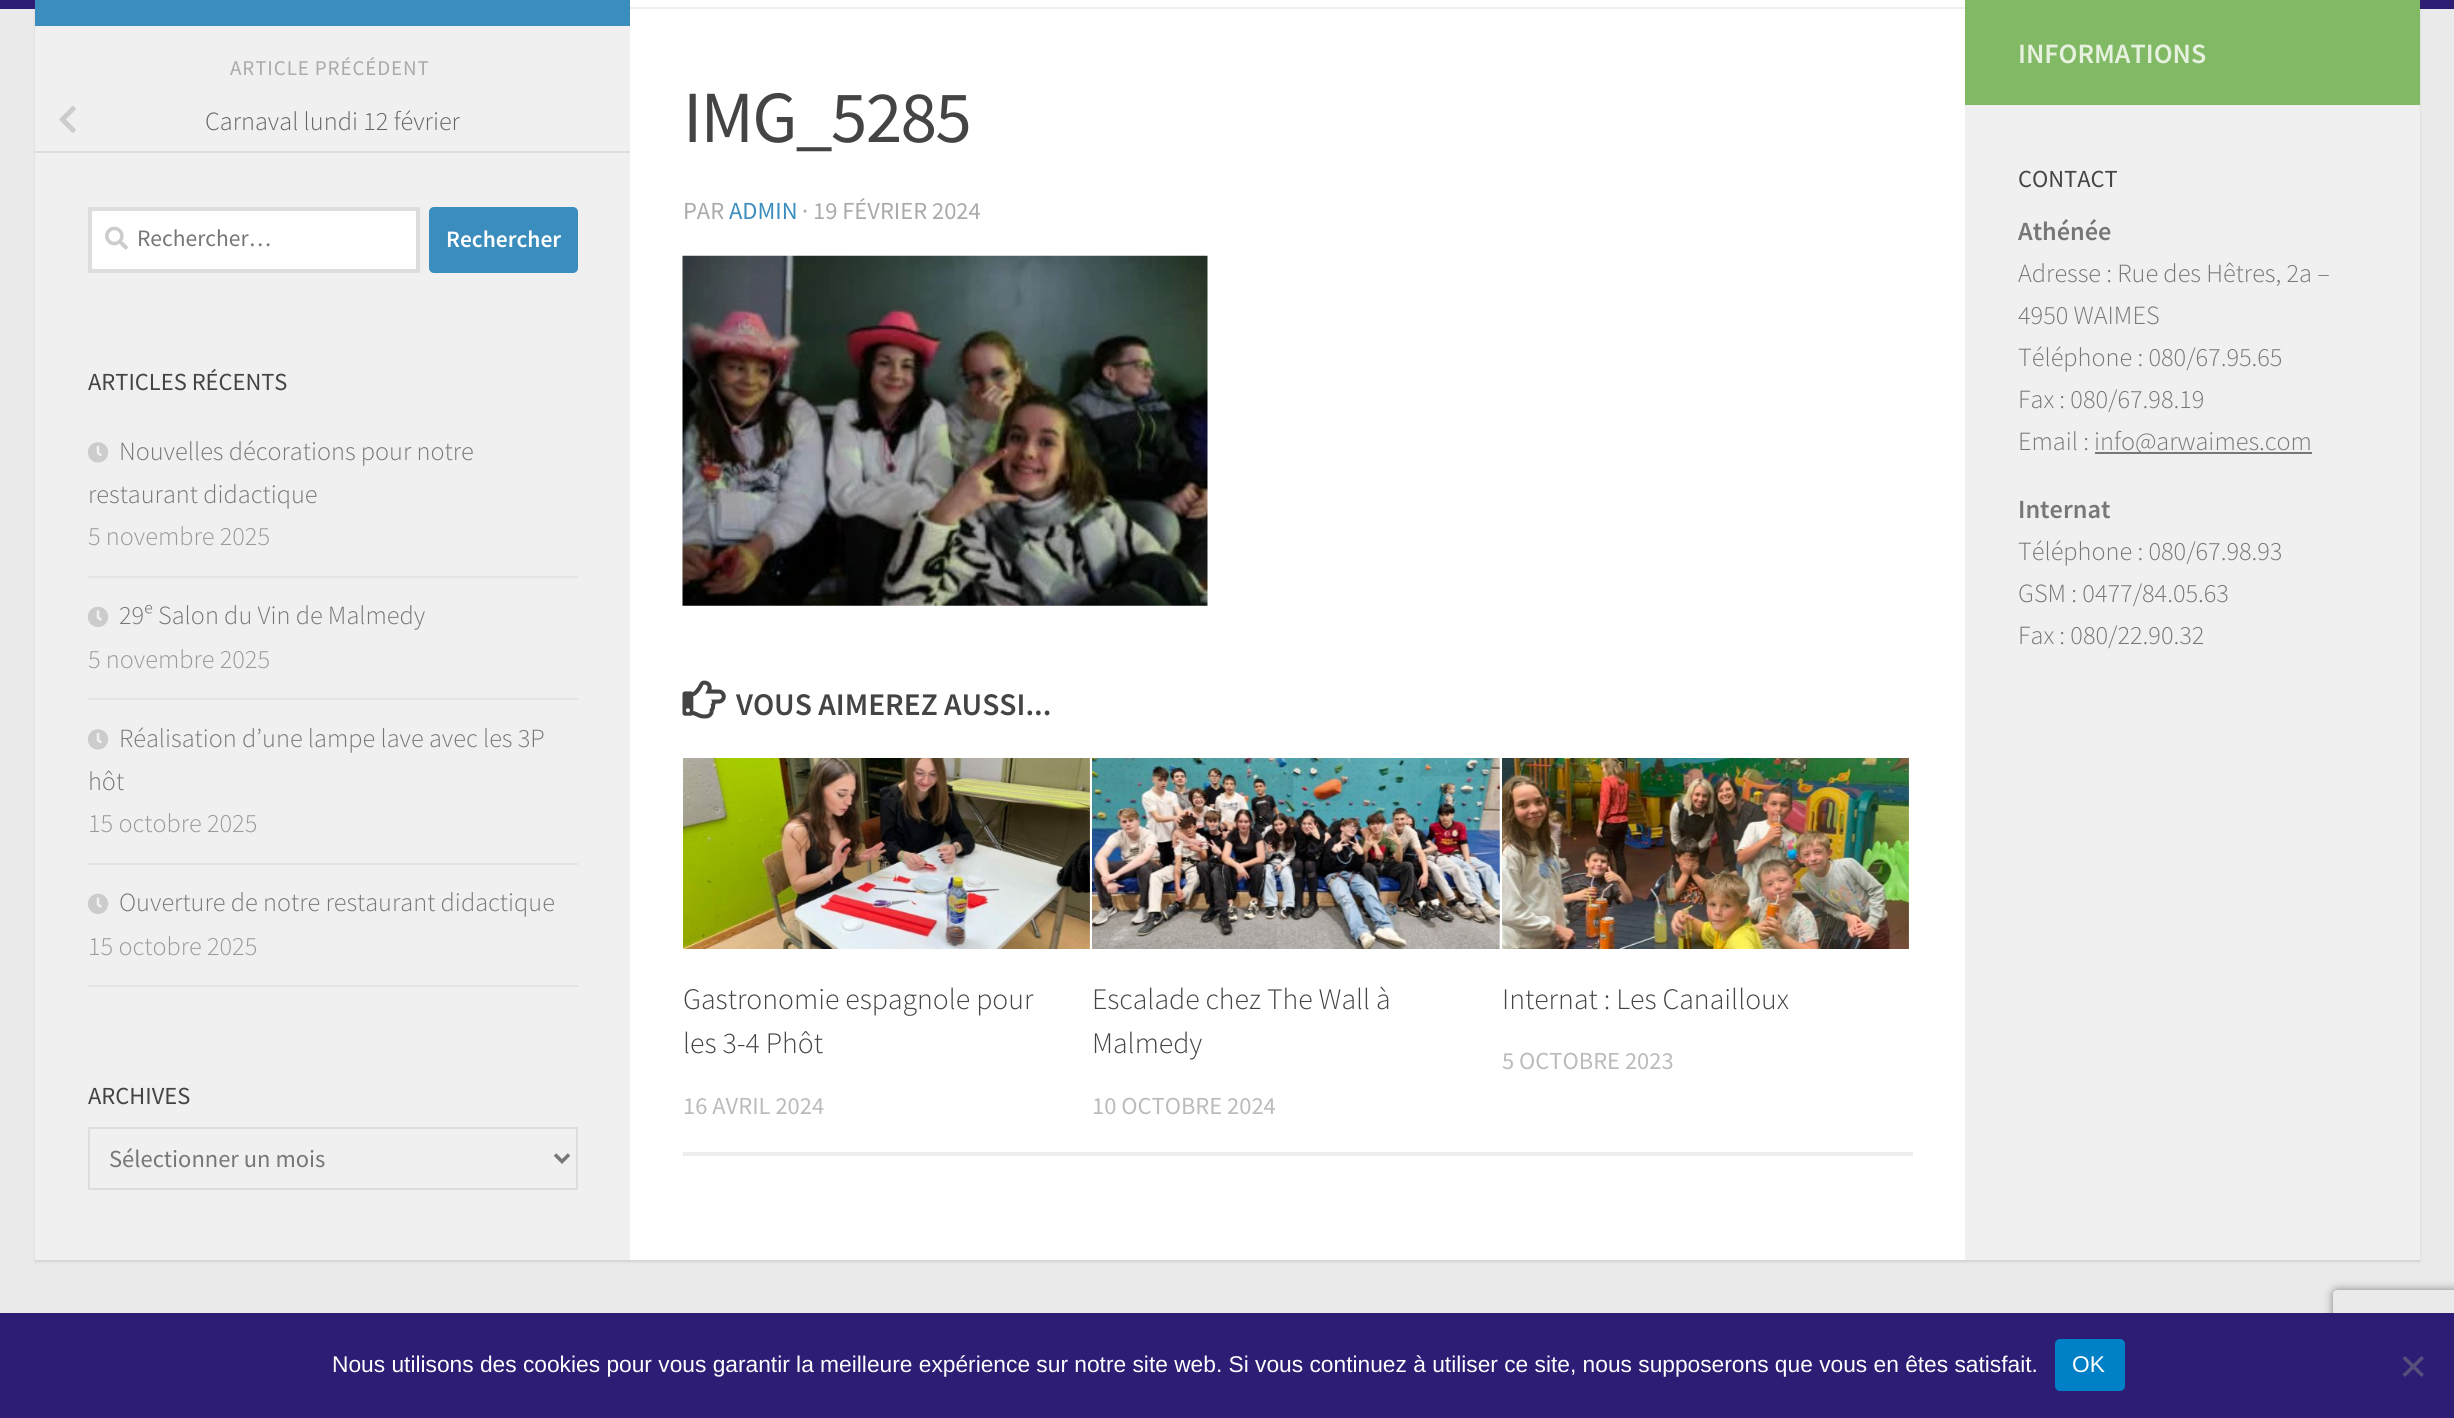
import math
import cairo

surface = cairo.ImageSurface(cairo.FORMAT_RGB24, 2454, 1418)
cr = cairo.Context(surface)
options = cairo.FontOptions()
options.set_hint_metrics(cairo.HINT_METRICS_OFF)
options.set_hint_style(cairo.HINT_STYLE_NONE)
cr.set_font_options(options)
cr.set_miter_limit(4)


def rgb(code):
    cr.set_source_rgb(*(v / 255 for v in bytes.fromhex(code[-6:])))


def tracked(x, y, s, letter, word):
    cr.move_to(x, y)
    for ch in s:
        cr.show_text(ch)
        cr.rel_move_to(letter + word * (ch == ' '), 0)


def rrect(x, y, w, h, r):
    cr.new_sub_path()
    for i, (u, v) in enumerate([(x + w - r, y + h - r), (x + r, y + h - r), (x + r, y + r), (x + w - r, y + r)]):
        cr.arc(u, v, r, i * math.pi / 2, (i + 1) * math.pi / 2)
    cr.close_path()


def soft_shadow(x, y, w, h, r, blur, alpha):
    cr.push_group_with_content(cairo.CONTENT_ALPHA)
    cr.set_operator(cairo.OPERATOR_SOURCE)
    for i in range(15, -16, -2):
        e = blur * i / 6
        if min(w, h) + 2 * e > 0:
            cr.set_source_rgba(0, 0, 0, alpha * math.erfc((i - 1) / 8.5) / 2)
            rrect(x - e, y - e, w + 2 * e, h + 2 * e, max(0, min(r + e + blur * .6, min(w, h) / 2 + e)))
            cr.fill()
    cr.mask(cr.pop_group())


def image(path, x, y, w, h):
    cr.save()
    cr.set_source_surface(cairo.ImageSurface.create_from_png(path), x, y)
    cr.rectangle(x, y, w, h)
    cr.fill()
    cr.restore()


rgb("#eaeaea")
cr.paint()
rgb("#000000")
soft_shadow(35, -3, 2385, 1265, 0, 1, 0.1)
for x, y, w, h, color in [
    (0, 0, 2454, 9, "#2d1d75"),
    (630, 0, 1335, 1260, "#ffffff"),
    (35, 26, 595, 1234, "#f0f0f0"),
    (35, 0, 595, 26, "#3b8dbd"),
    (35, 151, 595, 2, "#dddddd"),
]:
    rgb(color)
    cr.rectangle(x, y, w, h)
    cr.fill()
image("img/1.png", 59, 106, 17, 27)
rgb("#ffffff")
cr.rectangle(90, 209, 328, 62)
cr.fill_preserve()
rgb("#dddddd")
cr.set_line_width(4)
cr.stroke()
image("img/2.png", 105, 226, 23, 24)
rgb("#3b8dbd")
rrect(429, 207, 149, 66, 5)
cr.fill()
rgb("#e4e4e4")
cr.rectangle(88, 576, 490, 2)
cr.fill()
image("img/3.png", 87, 442, 22, 21)
cr.rectangle(88, 698, 490, 2)
cr.fill()
image("img/4.png", 87, 606, 22, 21)
cr.rectangle(88, 863, 490, 2)
cr.fill()
image("img/3.png", 87, 729, 22, 21)
cr.rectangle(88, 985, 490, 2)
cr.fill()
image("img/4.png", 87, 893, 22, 21)
cr.rectangle(89, 1128, 488, 61)
rgb("#dddddd")
cr.set_line_width(2)
cr.stroke()
cr.new_path()
cr.move_to(555, 1154.5)
cr.line_to(562, 1161.5)
cr.line_to(569, 1154.5)
rgb("#777777")
cr.set_line_width(3.5)
cr.stroke()
rgb("#eeeeee")
cr.rectangle(630, 7, 1335, 2)
cr.fill()
image("img/5.png", 682, 255, 526, 351)
image("img/6.png", 682, 680, 44, 39)
cr.rectangle(683, 1152, 1230, 4)
cr.fill()
image("img/7.png", 683, 758, 407, 191)
image("img/8.png", 1092, 758, 408, 191)
image("img/9.png", 1502, 758, 407, 191)
for x, y, w, h, color in [
    (1965, 0, 455, 105, "#82b965"),
    (1965, 105, 455, 1155, "#f0f0f0"),
    (2095, 452, 217, 2, "#777777"),
]:
    rgb(color)
    cr.rectangle(x, y, w, h)
    cr.fill()
cr.save()
cr.set_fill_rule(cairo.FILL_RULE_EVEN_ODD)
cr.new_path()
cr.move_to(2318, 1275)
cr.line_to(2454, 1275)
cr.line_to(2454, 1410)
cr.line_to(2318, 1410)
cr.close_path()
cr.move_to(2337, 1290)
cr.line_to(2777, 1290)
cr.curve_to(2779, 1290, 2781, 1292, 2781, 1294)
cr.line_to(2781, 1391)
cr.curve_to(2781, 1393, 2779, 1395, 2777, 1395)
cr.line_to(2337, 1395)
cr.curve_to(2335, 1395, 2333, 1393, 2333, 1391)
cr.line_to(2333, 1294)
cr.curve_to(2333, 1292, 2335, 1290, 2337, 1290)
cr.close_path()
cr.clip()
rgb("#808080")
soft_shadow(2333, 1290, 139, 105, 4, 4.5, 1)
cr.restore()
rgb("#2d1d75")
cr.rectangle(0, 1313, 2454, 105)
cr.fill()
rgb("#0080c6")
rrect(2055, 1339, 70, 52, 5)
cr.fill()
rgb("#574f7b")
cr.new_path()
cr.move_to(2421.5, 1356)
cr.line_to(2424, 1358.5)
cr.line_to(2405, 1377)
cr.line_to(2402.5, 1374.5)
cr.close_path()
cr.fill()
cr.new_path()
cr.move_to(2402.5, 1358.5)
cr.line_to(2405, 1356)
cr.line_to(2424, 1374.5)
cr.line_to(2421.5, 1377)
cr.close_path()
cr.fill()
cr.select_font_face("Source Sans Pro")
cr.set_font_size(21)
rgb("#aaaaaa")
tracked(230, 75, "ARTICLE PRÉCÉDENT", 0.9, 0)
cr.select_font_face("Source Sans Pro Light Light")
cr.set_font_size(26.25)
rgb("#666666")
cr.move_to(205, 130)
cr.show_text("Carnaval lundi 12 février")
cr.select_font_face("Source Sans Pro")
cr.set_font_size(23.5)
rgb("#777777")
cr.move_to(137, 246)
cr.show_text("Rechercher…")
cr.select_font_face("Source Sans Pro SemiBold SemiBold")
rgb("#ffffff")
cr.move_to(446, 247)
cr.show_text("Rechercher")
cr.select_font_face("Source Sans Pro")
cr.set_font_size(24.5)
rgb("#444444")
cr.move_to(88, 390)
cr.show_text("ARTICLES RÉCENTS")
cr.select_font_face("Source Sans Pro Light Light")
cr.set_font_size(26.25)
rgb("#777777")
cr.move_to(119, 460)
cr.show_text("Nouvelles décorations pour notre")
cr.move_to(88, 503)
cr.show_text("restaurant didactique")
rgb("#999999")
cr.move_to(88, 545)
cr.show_text("5 novembre 2025")
rgb("#777777")
cr.move_to(119, 624)
cr.show_text("29ᵉ Salon du Vin de Malmedy")
rgb("#999999")
cr.move_to(88, 668)
cr.show_text("5 novembre 2025")
rgb("#777777")
cr.move_to(119, 747)
cr.show_text("Réalisation d’une lampe lave avec les 3P")
cr.move_to(88, 790)
cr.show_text("hôt")
rgb("#999999")
cr.move_to(88, 832)
cr.show_text("15 octobre 2025")
rgb("#777777")
cr.move_to(119, 911)
cr.show_text("Ouverture de notre restaurant didactique")
rgb("#999999")
cr.move_to(88, 955)
cr.show_text("15 octobre 2025")
cr.select_font_face("Source Sans Pro")
cr.set_font_size(24.5)
rgb("#444444")
cr.move_to(88, 1104)
cr.show_text("ARCHIVES")
rgb("#777777")
cr.move_to(109, 1167)
cr.show_text("Sélectionner un mois")
cr.set_font_size(73.5)
rgb("#444444")
tracked(683, 142, "IMG_5285", -1.75, 0)
cr.set_font_size(24.5)
rgb("#aaaaaa")
cr.move_to(683, 219)
cr.show_text("PAR")
rgb("#3b8dbd")
cr.move_to(729, 219)
cr.show_text("ADMIN")
rgb("#aaaaaa")
cr.move_to(802, 219)
cr.show_text("· 19 FÉVRIER 2024")
cr.select_font_face("Source Sans Pro SemiBold SemiBold")
cr.set_font_size(31.5)
rgb("#444444")
cr.move_to(736, 715)
cr.show_text("VOUS AIMEREZ AUSSI...")
cr.select_font_face("Source Sans Pro Light Light")
cr.set_font_size(29.75)
cr.move_to(683, 1009)
cr.show_text("Gastronomie espagnole pour")
cr.move_to(683, 1053)
cr.show_text("les 3-4 Phôt")
cr.select_font_face("Source Sans Pro")
cr.set_font_size(24.5)
rgb("#bbbbbb")
cr.move_to(683, 1114)
cr.show_text("16 AVRIL 2024")
cr.select_font_face("Source Sans Pro Light Light")
cr.set_font_size(29.75)
rgb("#444444")
cr.move_to(1092, 1009)
cr.show_text("Escalade chez The Wall à")
cr.move_to(1092, 1053)
cr.show_text("Malmedy")
cr.select_font_face("Source Sans Pro")
cr.set_font_size(24.5)
rgb("#bbbbbb")
cr.move_to(1092, 1114)
cr.show_text("10 OCTOBRE 2024")
cr.select_font_face("Source Sans Pro Light Light")
cr.set_font_size(29.75)
rgb("#444444")
cr.move_to(1502, 1009)
cr.show_text("Internat : Les Canailloux")
cr.select_font_face("Source Sans Pro")
cr.set_font_size(24.5)
rgb("#bbbbbb")
cr.move_to(1502, 1069)
cr.show_text("5 OCTOBRE 2023")
cr.select_font_face("Source Sans Pro SemiBold SemiBold")
cr.set_font_size(28)
rgb("#e6f1e0")
cr.move_to(2018, 63)
cr.show_text("INFORMATIONS")
cr.select_font_face("Source Sans Pro")
cr.set_font_size(24.5)
rgb("#444444")
cr.move_to(2018, 187)
cr.show_text("CONTACT")
cr.select_font_face("Source Sans Pro SemiBold SemiBold")
cr.set_font_size(26.25)
rgb("#777777")
cr.move_to(2018, 240)
cr.show_text("Athénée")
cr.select_font_face("Source Sans Pro Light Light")
for x, y, s in [
    (2018, 282, "Adresse : Rue des Hêtres, 2a –"),
    (2018, 324, "4950 WAIMES"),
    (2018, 366, "Téléphone : 080/67.95.65"),
    (2018, 408, "Fax : 080/67.98.19"),
    (2018, 450, "Email :"),
    (2094, 450, "info@arwaimes.com"),
]:
    cr.move_to(x, y)
    cr.show_text(s)
cr.select_font_face("Source Sans Pro SemiBold SemiBold")
cr.move_to(2018, 518)
cr.show_text("Internat")
cr.select_font_face("Source Sans Pro Light Light")
for x, y, s in [
    (2018, 560, "Téléphone : 080/67.98.93"),
    (2018, 602, "GSM : 0477/84.05.63"),
    (2018, 644, "Fax : 080/22.90.32"),
]:
    cr.move_to(x, y)
    cr.show_text(s)
cr.select_font_face("Liberation Sans")
cr.set_font_size(22.75)
rgb("#ffffff")
cr.move_to(332, 1372)
cr.show_text("Nous utilisons des cookies pour vous garantir la meilleure expérience sur notre site web. Si vous continuez à utiliser ce site, nous supposerons que vous en êtes satisfait.")
cr.move_to(2072, 1372)
cr.show_text("OK")
surface.write_to_png("page.png")
